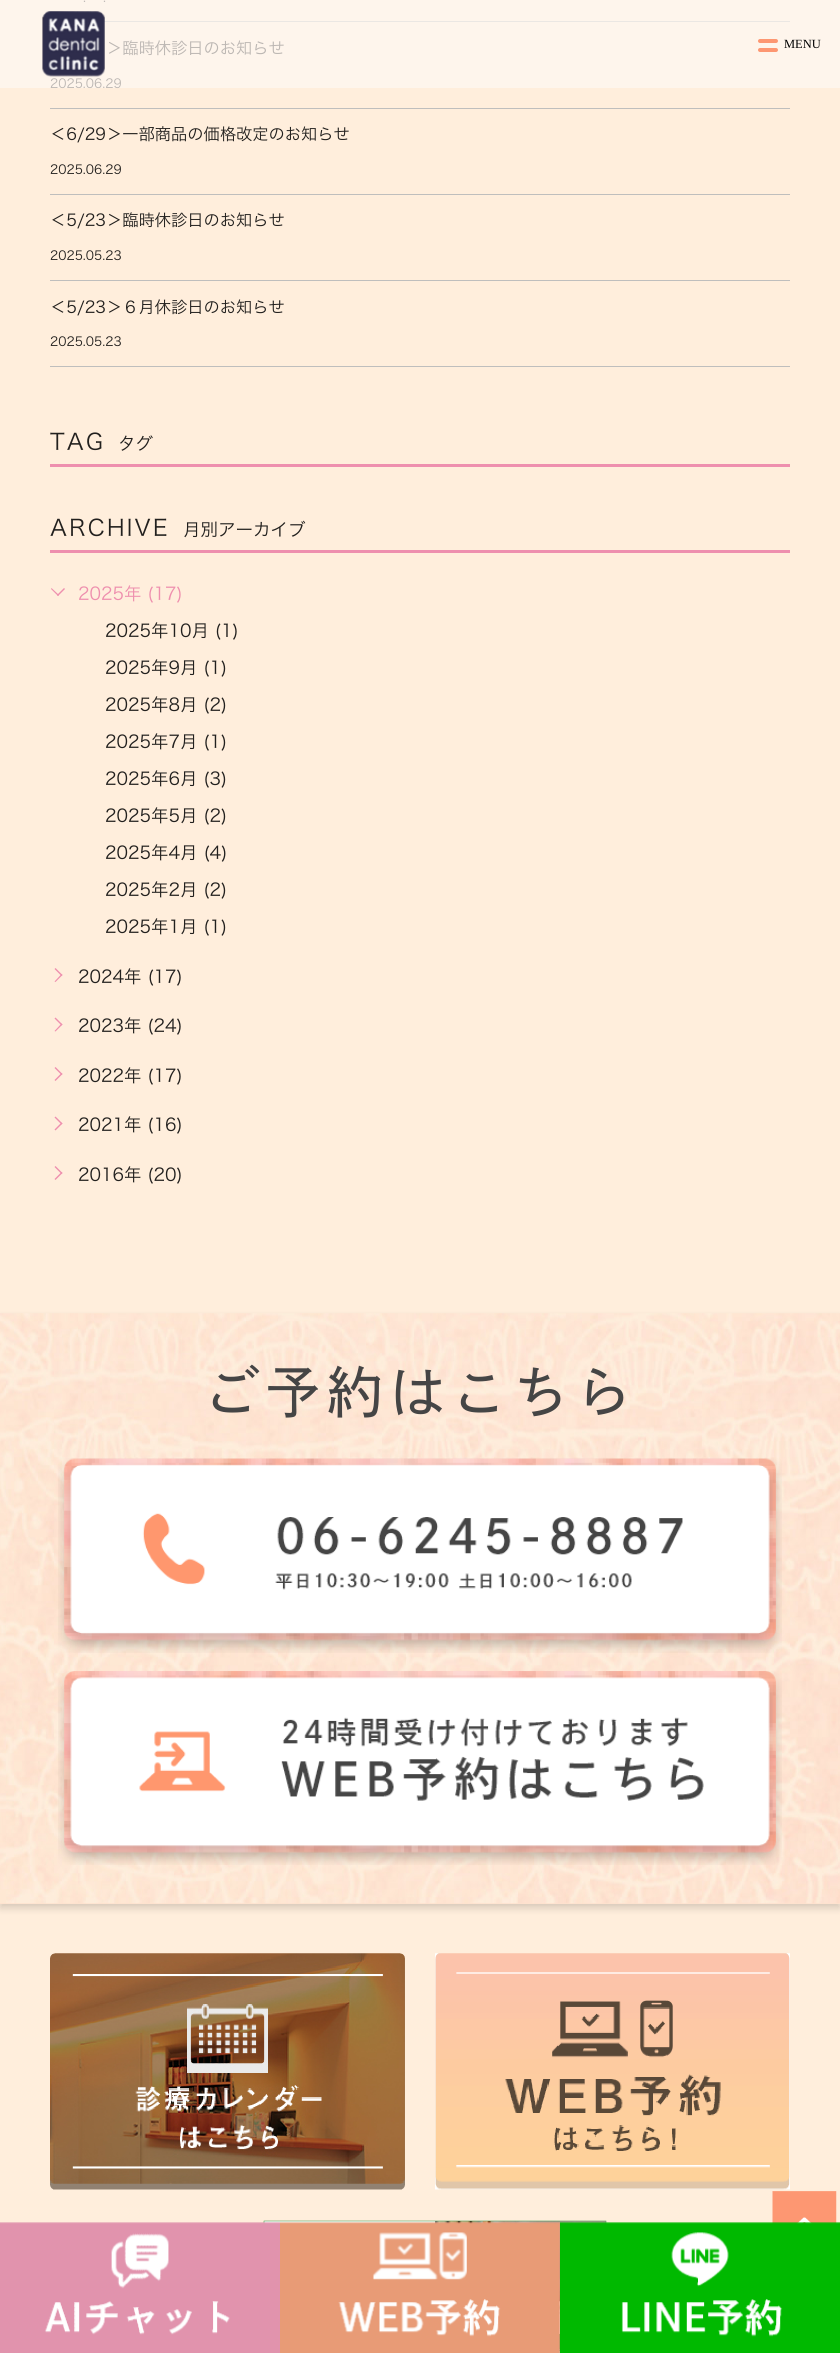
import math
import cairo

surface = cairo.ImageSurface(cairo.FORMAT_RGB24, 840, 2353)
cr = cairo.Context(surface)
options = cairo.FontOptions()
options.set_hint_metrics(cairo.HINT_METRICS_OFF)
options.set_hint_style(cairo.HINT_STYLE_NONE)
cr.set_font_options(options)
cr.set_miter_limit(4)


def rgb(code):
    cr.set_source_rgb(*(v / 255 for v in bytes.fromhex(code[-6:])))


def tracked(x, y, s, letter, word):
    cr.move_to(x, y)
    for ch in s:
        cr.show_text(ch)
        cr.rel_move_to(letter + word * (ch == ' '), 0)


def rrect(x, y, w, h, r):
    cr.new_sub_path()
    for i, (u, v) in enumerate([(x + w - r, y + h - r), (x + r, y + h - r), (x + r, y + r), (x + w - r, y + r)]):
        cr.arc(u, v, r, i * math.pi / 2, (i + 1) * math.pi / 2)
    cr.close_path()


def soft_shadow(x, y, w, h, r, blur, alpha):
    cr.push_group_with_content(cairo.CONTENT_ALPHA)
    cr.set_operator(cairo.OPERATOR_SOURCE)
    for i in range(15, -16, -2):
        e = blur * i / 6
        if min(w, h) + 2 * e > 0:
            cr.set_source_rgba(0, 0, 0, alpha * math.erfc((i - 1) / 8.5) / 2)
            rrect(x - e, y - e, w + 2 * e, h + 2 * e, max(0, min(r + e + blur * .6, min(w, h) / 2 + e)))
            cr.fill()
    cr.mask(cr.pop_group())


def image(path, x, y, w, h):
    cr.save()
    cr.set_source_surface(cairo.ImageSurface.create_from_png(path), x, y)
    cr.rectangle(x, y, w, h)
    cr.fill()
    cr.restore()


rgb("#ffeedc")
cr.paint()
for x, y, w, h, color in [
    (0, 0, 840, 88, "#fef5ec"),
    (103, 21, 687, 1, "#ebe7e3"),
    (50, 108, 740, 1, "#bfbebd"),
    (50, 194, 740, 1, "#bfbebd"),
    (50, 280, 740, 1, "#bfbebd"),
    (50, 366, 740, 1, "#bfbebd"),
    (50, 464, 740, 3, "#ee8fae"),
    (50, 550, 740, 3, "#ee8fae"),
]:
    rgb(color)
    cr.rectangle(x, y, w, h)
    cr.fill()
cr.new_path()
cr.move_to(64, 588)
cr.line_to(65, 589)
cr.line_to(58, 596)
cr.line_to(57, 595)
cr.close_path()
cr.fill()
cr.new_path()
cr.move_to(51.5, 588)
cr.line_to(59, 595)
cr.line_to(58, 596)
cr.line_to(51, 589)
cr.close_path()
cr.fill()
cr.new_path()
cr.move_to(54.5, 969)
cr.line_to(55.5, 968)
cr.line_to(62.5, 975)
cr.line_to(61.5, 976)
cr.close_path()
cr.fill()
cr.new_path()
cr.move_to(54.5, 981.5)
cr.line_to(61.5, 974)
cr.line_to(62.5, 975)
cr.line_to(55.5, 982)
cr.close_path()
cr.fill()
cr.new_path()
cr.move_to(54.5, 1018.5)
cr.line_to(55.5, 1017.5)
cr.line_to(62.5, 1024.5)
cr.line_to(61.5, 1025.5)
cr.close_path()
cr.fill()
cr.new_path()
cr.move_to(54.5, 1031)
cr.line_to(61.5, 1023.5)
cr.line_to(62.5, 1024.5)
cr.line_to(55.5, 1031.5)
cr.close_path()
cr.fill()
cr.new_path()
cr.move_to(54.5, 1068)
cr.line_to(55.5, 1067)
cr.line_to(62.5, 1074)
cr.line_to(61.5, 1075)
cr.close_path()
cr.fill()
cr.new_path()
cr.move_to(54.5, 1080)
cr.line_to(61.5, 1073)
cr.line_to(62.5, 1074)
cr.line_to(55.5, 1081)
cr.close_path()
cr.fill()
cr.new_path()
cr.move_to(54.5, 1117.5)
cr.line_to(55.5, 1116.5)
cr.line_to(62.5, 1123.5)
cr.line_to(61.5, 1124.5)
cr.close_path()
cr.fill()
cr.new_path()
cr.move_to(54.5, 1129.5)
cr.line_to(61.5, 1122.5)
cr.line_to(62.5, 1123.5)
cr.line_to(55.5, 1130.5)
cr.close_path()
cr.fill()
cr.new_path()
cr.move_to(54.5, 1167)
cr.line_to(55.5, 1166)
cr.line_to(62.5, 1173)
cr.line_to(61.5, 1174)
cr.close_path()
cr.fill()
cr.new_path()
cr.move_to(54.5, 1179)
cr.line_to(61.5, 1172)
cr.line_to(62.5, 1173)
cr.line_to(55.5, 1180)
cr.close_path()
cr.fill()
image("img/1.png", 42, 11, 63, 66)
rgb("#fd9772")
rrect(758, 39, 20, 4, 2)
cr.fill()
rrect(758, 48, 20, 4, 2)
cr.fill()
rgb("#000000")
soft_shadow(0, 1318, 840, 590, 0, 4, 0.16)
rgb("#fde1ce")
cr.rectangle(0, 1903, 840, 1)
cr.fill()
image("img/2.png", 0, 1313, 840, 591)
image("img/3.png", 58, 1458, 724, 195)
image("img/4.png", 58, 1671, 724, 194)
image("img/5.png", 50, 1953, 355, 237)
image("img/6.png", 435, 1953, 355, 237)
image("img/7.png", 263, 2220, 344, 133)
image("img/8.png", 772, 2191, 65, 33)
image("img/9.png", 0, 2222, 280, 131)
image("img/10.png", 280, 2222, 280, 131)
image("img/11.png", 560, 2222, 280, 131)
cr.select_font_face("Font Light")
cr.set_font_size(12.5)
rgb("#bcb7b3")
cr.move_to(83, 2)
cr.show_text(".")
cr.move_to(103, 2)
cr.show_text(".")
cr.set_font_size(16.25)
cr.move_to(106, 54)
cr.show_text("＞臨時休診日のお知らせ")
cr.set_font_size(12.5)
cr.move_to(50, 88)
cr.show_text("2025.06.29")
cr.set_font_size(16.25)
rgb("#22201e")
cr.move_to(50, 140)
cr.show_text("＜6/29＞一部商品の価格改定のお知らせ")
cr.set_font_size(12.5)
cr.move_to(50, 174)
cr.show_text("2025.06.29")
cr.set_font_size(16.25)
cr.move_to(50, 226)
cr.show_text("＜5/23＞臨時休診日のお知らせ")
cr.set_font_size(12.5)
cr.move_to(50, 260)
cr.show_text("2025.05.23")
cr.set_font_size(16.25)
cr.move_to(50, 313)
cr.show_text("＜5/23＞６月休診日のお知らせ")
cr.set_font_size(12.5)
cr.move_to(50, 346)
cr.show_text("2025.05.23")
cr.set_font_size(22.5)
tracked(50, 450, "TAG", 2.25, 0)
cr.set_font_size(17.5)
cr.move_to(118, 450)
cr.show_text("タグ")
cr.set_font_size(22.5)
tracked(50, 536, "ARCHIVE", 2.25, 0)
cr.set_font_size(17.5)
cr.move_to(183, 536)
cr.show_text("月別アーカイブ")
rgb("#ee8fae")
cr.move_to(78, 600)
cr.show_text("2025年 (17)")
rgb("#22201e")
for x, y, s in [
    (105, 637, "2025年10月 (1)"),
    (105, 674, "2025年9月 (1)"),
    (105, 711, "2025年8月 (2)"),
    (105, 748, "2025年7月 (1)"),
    (105, 785, "2025年6月 (3)"),
    (105, 822, "2025年5月 (2)"),
    (105, 859, "2025年4月 (4)"),
    (105, 896, "2025年2月 (2)"),
    (105, 933, "2025年1月 (1)"),
    (78, 983, "2024年 (17)"),
    (78, 1032, "2023年 (24)"),
    (78, 1082, "2022年 (17)"),
    (78, 1131, "2021年 (16)"),
    (78, 1181, "2016年 (20)"),
]:
    cr.move_to(x, y)
    cr.show_text(s)
cr.select_font_face("Liberation Serif")
cr.set_font_size(12.5)
rgb("#000000")
cr.move_to(784, 48)
cr.show_text("MENU")
cr.select_font_face("Font Medium")
cr.set_font_size(56.5)
rgb("#454545")
tracked(203, 1413, "ご予約はこちら", 5.5, 0)
surface.write_to_png("page.png")
